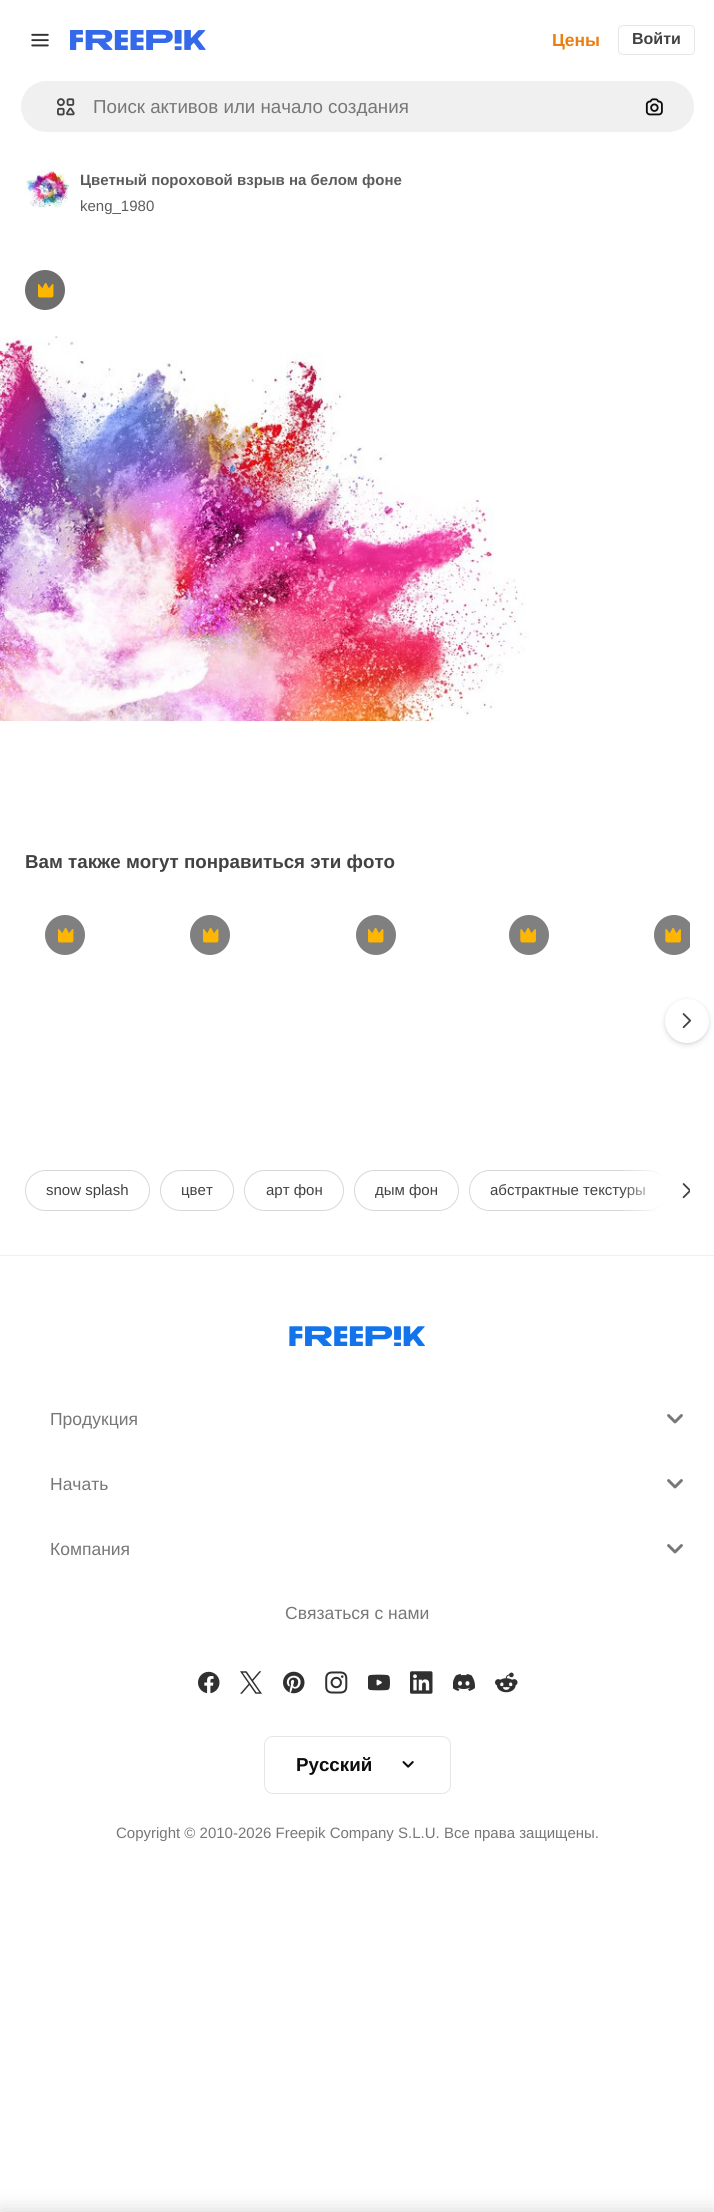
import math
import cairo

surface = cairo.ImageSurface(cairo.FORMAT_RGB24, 714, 2212)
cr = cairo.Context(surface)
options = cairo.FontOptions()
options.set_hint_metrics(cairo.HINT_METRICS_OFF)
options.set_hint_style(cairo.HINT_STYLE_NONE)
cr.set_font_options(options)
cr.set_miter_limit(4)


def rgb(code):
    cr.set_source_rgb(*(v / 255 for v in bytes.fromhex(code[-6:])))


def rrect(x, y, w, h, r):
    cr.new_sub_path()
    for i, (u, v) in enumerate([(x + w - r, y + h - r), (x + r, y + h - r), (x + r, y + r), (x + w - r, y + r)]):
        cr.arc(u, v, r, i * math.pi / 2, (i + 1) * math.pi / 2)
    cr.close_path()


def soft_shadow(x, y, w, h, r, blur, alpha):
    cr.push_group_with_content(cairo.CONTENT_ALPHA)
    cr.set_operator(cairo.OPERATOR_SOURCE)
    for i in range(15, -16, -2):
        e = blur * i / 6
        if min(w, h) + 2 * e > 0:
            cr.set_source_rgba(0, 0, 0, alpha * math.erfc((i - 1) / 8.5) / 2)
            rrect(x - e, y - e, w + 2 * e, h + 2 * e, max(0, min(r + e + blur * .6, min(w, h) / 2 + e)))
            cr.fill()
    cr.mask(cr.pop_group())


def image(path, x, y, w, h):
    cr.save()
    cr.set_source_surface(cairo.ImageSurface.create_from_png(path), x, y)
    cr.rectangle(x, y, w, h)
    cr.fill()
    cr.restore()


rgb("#ffffff")
cr.paint()
image("img/1.png", 31, 33, 18, 14)
image("img/2.png", 70, 30, 136, 20)
rrect(618.5, 25.5, 76, 29, 4.5)
rgb("#e7e7e7")
cr.set_line_width(1)
cr.stroke()
rgb("#f0f0f0")
rrect(20.5, 80.5, 674, 52, 26)
cr.fill_preserve()
rgb("#ffffff")
cr.stroke()
image("img/3.png", 56, 98, 19, 18)
image("img/4.png", 645, 98, 18, 18)
image("img/5.png", 25, 168, 45, 41)
rgb("#6e6e6e")
cr.arc(45, 290, 20, 0, 2 * math.pi)
cr.fill()
image("img/6.png", 38, 283, 16, 15)
image("img/7.png", 0, 336, 529, 386)
rgb("#808080")
cr.arc(65, 935, 20, 0, 2 * math.pi)
cr.fill()
image("img/8.png", 58, 928, 16, 15)
cr.arc(210, 935, 20, 0, 2 * math.pi)
cr.fill()
image("img/8.png", 203, 928, 16, 15)
cr.arc(376, 935, 20, 0, 2 * math.pi)
cr.fill()
image("img/8.png", 368, 928, 16, 15)
cr.arc(529, 935, 20, 0, 2 * math.pi)
cr.fill()
image("img/9.png", 520, 928, 16, 15)
cr.save()
cr.rectangle(25, 895, 665, 250)
cr.clip()
cr.arc(674, 935, 20, 0, 2 * math.pi)
cr.fill()
cr.restore()
image("img/9.png", 665, 928, 16, 15)
rgb("#374957")
soft_shadow(665, 1001, 44, 44, 22, 3, 0.15)
soft_shadow(665, 1000, 44, 44, 22, 1, 0.1)
rgb("#ffffff")
cr.arc(687, 1021, 22, 0, 2 * math.pi)
cr.fill()
image("img/10.png", 682, 1013, 10, 16)
rrect(25.5, 1170.5, 124, 40, 20)
rgb("#d8d8d8")
cr.stroke()
rrect(160.5, 1170.5, 73, 40, 20)
cr.stroke()
rrect(244.5, 1170.5, 99, 40, 20)
cr.stroke()
rrect(354.5, 1170.5, 104, 40, 20)
cr.stroke()
rrect(469.5, 1170.5, 198, 40, 20)
cr.stroke()
rgb("#ffffff")
cr.rectangle(665, 1180, 3, 21)
cr.fill()
image("img/11.png", 682, 1183, 8, 16)
rgb("#f0f0f0")
cr.rectangle(0, 1255, 714, 1)
cr.fill()
image("img/12.png", 289, 1326, 136, 20)
image("img/13.png", 667, 1414, 16, 10)
image("img/13.png", 667, 1479, 16, 10)
image("img/13.png", 667, 1544, 16, 10)
image("img/14.png", 198, 1671, 22, 23)
image("img/15.png", 240, 1671, 22, 23)
image("img/16.png", 283, 1671, 22, 23)
image("img/17.png", 325, 1671, 23, 23)
image("img/18.png", 368, 1674, 22, 17)
image("img/19.png", 410, 1671, 23, 23)
image("img/20.png", 453, 1674, 22, 17)
image("img/21.png", 495, 1672, 23, 21)
rrect(264.5, 1736.5, 186, 57, 8.5)
rgb("#e6e6e6")
cr.stroke()
image("img/22.png", 402, 1761, 12, 7)
rgb("#000000")
soft_shadow(0, 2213, 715, 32, 0, 11, 0.2)
cr.select_font_face("Liberation Sans", cairo.FONT_SLANT_NORMAL, cairo.FONT_WEIGHT_BOLD)
cr.set_font_size(17.5)
rgb("#ea7e11")
cr.move_to(552, 46)
cr.show_text("Цены")
cr.set_font_size(16)
rgb("#424242")
cr.move_to(632, 44)
cr.show_text("Войти")
cr.save()
cr.rectangle(93, 95, 538, 21)
cr.clip()
cr.select_font_face("Liberation Sans")
cr.set_font_size(18.75)
rgb("#777777")
cr.move_to(93, 113)
cr.show_text("Поиск активов или начало создания")
cr.restore()
cr.save()
cr.rectangle(80, 169, 321, 24)
cr.clip()
cr.set_font_size(15)
rgb("#5c5c5c")
cr.move_to(80, 185)
cr.show_text("Цветный пороховой взрыв на белом фоне")
cr.restore()
cr.select_font_face("Liberation Sans")
cr.set_font_size(15)
rgb("#5c5c5c")
cr.move_to(80, 211)
cr.show_text("keng_1980")
cr.select_font_face("Liberation Sans", cairo.FONT_SLANT_NORMAL, cairo.FONT_WEIGHT_BOLD)
cr.set_font_size(18.75)
rgb("#424242")
cr.move_to(25, 868)
cr.show_text("Вам также могут понравиться эти фото")
cr.select_font_face("Liberation Sans")
cr.set_font_size(15)
for x, y, s in [
    (46, 1195, "snow splash"),
    (181, 1195, "цвет"),
    (266, 1195, "арт фон"),
    (375, 1195, "дым фон"),
    (490, 1195, "абстрактные текстуры"),
]:
    cr.move_to(x, y)
    cr.show_text(s)
gradient = cairo.LinearGradient(665, 1191, 621, 1191)
gradient.add_color_stop_rgba(0, 1, 1, 1, 1)
gradient.add_color_stop_rgba(1, 1, 1, 1, 0)
cr.set_source(gradient)
cr.rectangle(622, 1170, 43, 41)
cr.fill()
cr.set_font_size(17.5)
rgb("#777777")
for x, y, s in [
    (50, 1425, "Продукция"),
    (50, 1490, "Начать"),
    (50, 1555, "Компания"),
    (285, 1619, "Связаться с нами"),
]:
    cr.move_to(x, y)
    cr.show_text(s)
cr.select_font_face("Liberation Sans", cairo.FONT_SLANT_NORMAL, cairo.FONT_WEIGHT_BOLD)
cr.set_font_size(18.75)
rgb("#0d0d0d")
cr.move_to(296, 1771)
cr.show_text("Pусский")
cr.select_font_face("Liberation Sans")
cr.set_font_size(15)
rgb("#777777")
cr.move_to(116, 1838)
cr.show_text("Copyright © 2010-2026 Freepik Company S.L.U. Все права защищены.")
surface.write_to_png("page.png")
